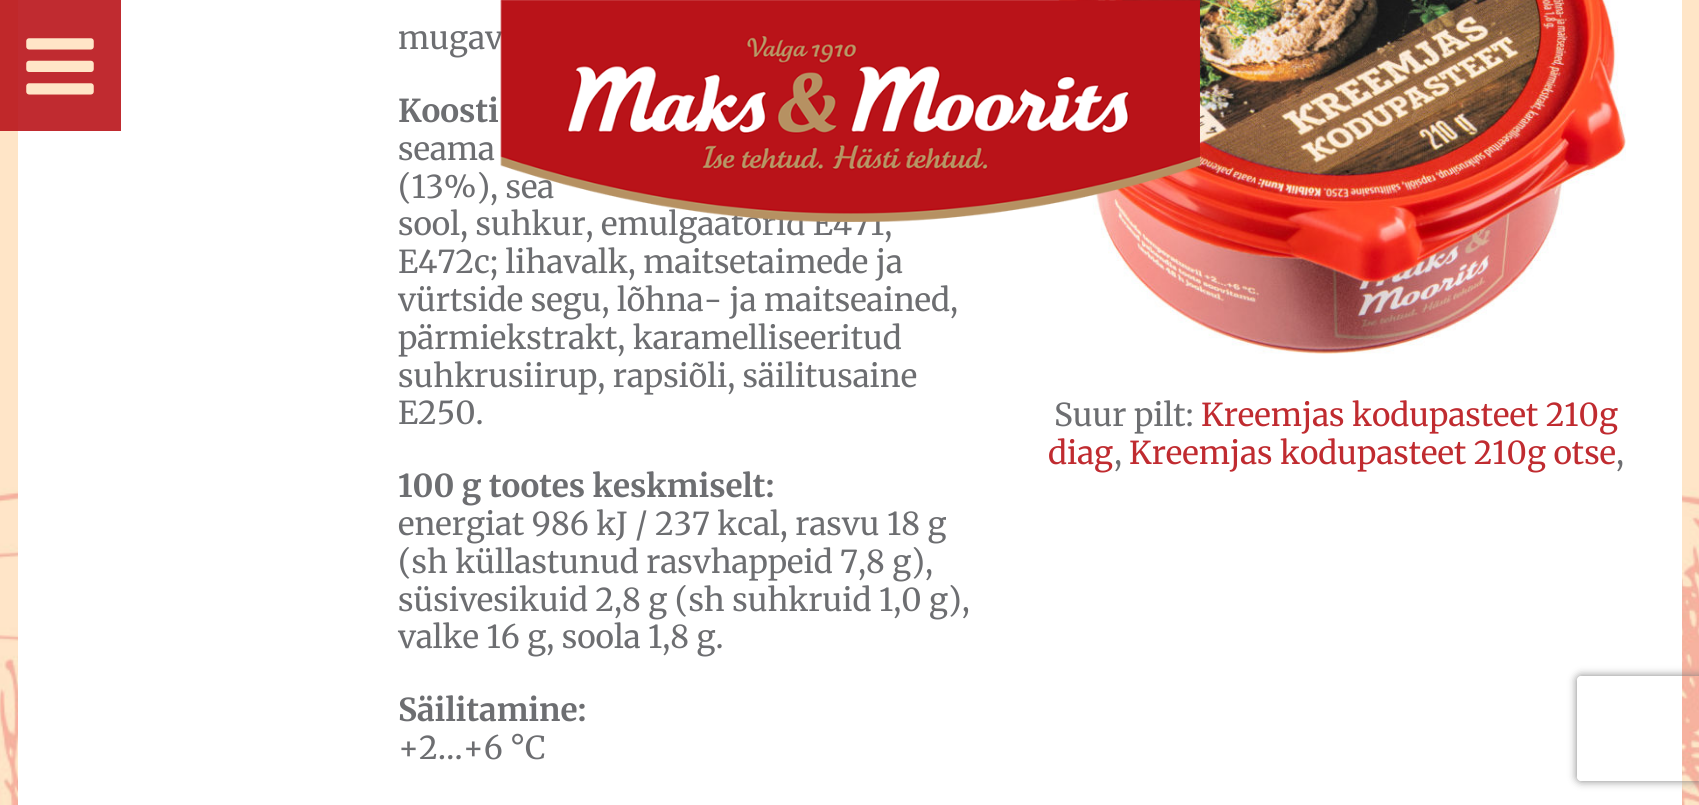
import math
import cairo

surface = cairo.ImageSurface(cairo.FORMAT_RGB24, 1699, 805)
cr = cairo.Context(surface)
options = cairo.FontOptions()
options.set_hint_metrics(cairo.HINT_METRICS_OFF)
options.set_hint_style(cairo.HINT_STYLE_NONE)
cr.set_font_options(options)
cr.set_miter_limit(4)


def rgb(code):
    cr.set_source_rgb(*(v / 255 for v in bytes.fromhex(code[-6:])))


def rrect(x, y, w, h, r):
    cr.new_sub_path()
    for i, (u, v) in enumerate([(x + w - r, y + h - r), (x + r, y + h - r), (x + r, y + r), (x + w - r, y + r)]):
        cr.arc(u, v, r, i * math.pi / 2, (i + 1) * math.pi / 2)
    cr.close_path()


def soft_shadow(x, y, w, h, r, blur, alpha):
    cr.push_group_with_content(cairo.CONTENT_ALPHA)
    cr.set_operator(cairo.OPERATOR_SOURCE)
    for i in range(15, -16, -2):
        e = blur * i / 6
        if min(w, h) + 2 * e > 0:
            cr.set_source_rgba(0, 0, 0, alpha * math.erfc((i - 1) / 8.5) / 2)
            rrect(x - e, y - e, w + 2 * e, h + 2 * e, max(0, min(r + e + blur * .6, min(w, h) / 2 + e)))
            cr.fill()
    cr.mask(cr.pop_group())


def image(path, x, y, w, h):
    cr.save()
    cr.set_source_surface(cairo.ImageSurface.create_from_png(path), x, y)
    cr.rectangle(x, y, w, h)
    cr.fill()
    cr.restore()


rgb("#ffe5c7")
cr.paint()
rgb("#c0282a")
cr.rectangle(0, 0, 18, 131)
cr.fill()
image("img/1.png", 0, 390, 1699, 415)
rgb("#ffffff")
cr.rectangle(18, 0, 1664, 805)
cr.fill()
rgb("#c02b30")
cr.rectangle(18, 0, 103, 131)
cr.fill()
image("img/2.png", 26, 38, 68, 57)
image("img/4.png", 1046, 0, 580, 354)
cr.save()
cr.set_fill_rule(cairo.FILL_RULE_EVEN_ODD)
cr.new_path()
cr.move_to(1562, 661)
cr.line_to(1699, 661)
cr.line_to(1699, 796)
cr.line_to(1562, 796)
cr.close_path()
cr.move_to(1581, 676)
cr.line_to(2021, 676)
cr.curve_to(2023, 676, 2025, 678, 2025, 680)
cr.line_to(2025, 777)
cr.curve_to(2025, 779, 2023, 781, 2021, 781)
cr.line_to(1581, 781)
cr.curve_to(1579, 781, 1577, 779, 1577, 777)
cr.line_to(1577, 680)
cr.curve_to(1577, 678, 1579, 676, 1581, 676)
cr.close_path()
cr.clip()
rgb("#808080")
soft_shadow(1577, 676, 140, 105, 4, 4.5, 1)
cr.restore()
cr.select_font_face("Merriweather")
cr.set_font_size(31.5)
rgb("#6d6e71")
cr.move_to(398, 49)
cr.show_text("mugav")
cr.select_font_face("Merriweather", cairo.FONT_SLANT_NORMAL, cairo.FONT_WEIGHT_BOLD)
cr.move_to(398, 122)
cr.show_text("Koosti")
cr.select_font_face("Merriweather")
for x, y, s in [
    (398, 160, "seama"),
    (398, 198, "(13%), sea"),
    (398, 235, "sool, suhkur, emulgaatorid E471,"),
]:
    cr.move_to(x, y)
    cr.show_text(s)
image("img/3.png", 500, 0, 700, 222)
for x, y, s in [
    (398, 273, "E472c; lihavalk, maitsetaimede ja"),
    (398, 311, "vürtside segu, lõhna- ja maitseained,"),
    (398, 349, "pärmiekstrakt, karamelliseeritud"),
    (398, 387, "suhkrusiirup, rapsiõli, säilitusaine"),
    (398, 424, "E250."),
]:
    cr.move_to(x, y)
    cr.show_text(s)
cr.select_font_face("Merriweather", cairo.FONT_SLANT_NORMAL, cairo.FONT_WEIGHT_BOLD)
cr.move_to(398, 497)
cr.show_text("100 g tootes keskmiselt:")
cr.select_font_face("Merriweather")
for x, y, s in [
    (398, 535, "energiat 986 kJ / 237 kcal, rasvu 18 g"),
    (398, 573, "(sh küllastunud rasvhappeid 7,8 g),"),
    (398, 611, "süsivesikuid 2,8 g (sh suhkruid 1,0 g),"),
    (398, 648, "valke 16 g, soola 1,8 g."),
]:
    cr.move_to(x, y)
    cr.show_text(s)
cr.select_font_face("Merriweather", cairo.FONT_SLANT_NORMAL, cairo.FONT_WEIGHT_BOLD)
cr.move_to(398, 721)
cr.show_text("Säilitamine:")
cr.select_font_face("Merriweather")
cr.move_to(398, 759)
cr.show_text("+2…+6 °C")
cr.move_to(1054, 426)
cr.show_text("Suur pilt:")
rgb("#c02b30")
cr.move_to(1201, 426)
cr.show_text("Kreemjas kodupasteet 210g")
cr.move_to(1048, 464)
cr.show_text("diag")
rgb("#6d6e71")
cr.move_to(1114, 464)
cr.show_text(",")
rgb("#c02b30")
cr.move_to(1129, 464)
cr.show_text("Kreemjas kodupasteet 210g otse")
rgb("#6d6e71")
cr.move_to(1616, 464)
cr.show_text(",")
surface.write_to_png("page.png")
